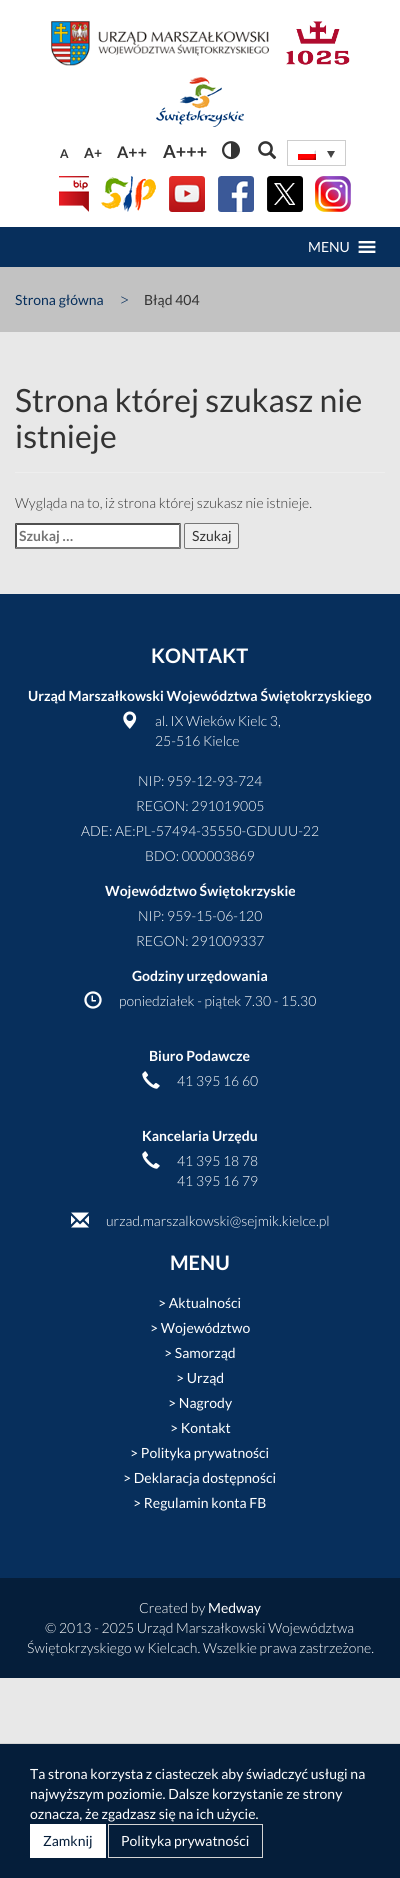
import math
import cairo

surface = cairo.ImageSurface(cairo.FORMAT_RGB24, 400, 1878)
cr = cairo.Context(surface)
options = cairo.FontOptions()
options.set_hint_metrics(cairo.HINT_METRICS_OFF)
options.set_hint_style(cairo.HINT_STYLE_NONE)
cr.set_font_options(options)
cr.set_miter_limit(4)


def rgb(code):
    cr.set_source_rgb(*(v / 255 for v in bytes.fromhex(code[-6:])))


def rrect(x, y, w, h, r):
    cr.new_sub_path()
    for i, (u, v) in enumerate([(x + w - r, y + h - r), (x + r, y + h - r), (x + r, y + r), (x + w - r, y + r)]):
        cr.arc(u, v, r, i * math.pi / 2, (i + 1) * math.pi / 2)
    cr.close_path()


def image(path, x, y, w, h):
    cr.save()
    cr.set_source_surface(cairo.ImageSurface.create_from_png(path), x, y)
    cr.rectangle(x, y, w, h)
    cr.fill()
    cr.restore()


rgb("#e8e8e8")
cr.paint()
rgb("#ffffff")
cr.rectangle(0, 0, 400, 227)
cr.fill()
image("img/1.png", 51, 21, 299, 45)
image("img/2.png", 156, 77, 88, 50)
image("img/3.png", 222, 141, 18, 19)
image("img/4.png", 258, 141, 19, 19)
cr.rectangle(287.5, 140.5, 58, 25)
rgb("#cdcdcd")
cr.set_line_width(1)
cr.stroke()
image("img/5.png", 298, 150, 18, 10)
rgb("#444444")
cr.new_path()
cr.move_to(327, 151)
cr.line_to(335, 151)
cr.line_to(331, 158)
cr.close_path()
cr.fill()
image("img/6.png", 59, 176, 30, 36)
image("img/7.png", 101, 176, 55, 36)
image("img/8.png", 169, 176, 36, 36)
image("img/9.png", 218, 176, 36, 36)
image("img/10.png", 267, 176, 36, 36)
image("img/11.png", 315, 176, 36, 36)
rgb("#072f5c")
cr.rectangle(0, 227, 400, 40)
cr.fill()
image("img/12.png", 358, 241, 18, 12)
for x, y, w, h, color in [
    (0, 267, 400, 65, "#c2c2c2"),
    (15, 472, 370, 1, "#eeeeee"),
    (15, 523, 166, 26, "#ffffff"),
]:
    rgb(color)
    cr.rectangle(x, y, w, h)
    cr.fill()
rgb("#4f4f4f")
cr.new_path()
cr.move_to(15, 523)
cr.line_to(181, 523)
cr.line_to(179, 525)
cr.line_to(17, 525)
cr.close_path()
cr.fill()
rgb("#767676")
cr.new_path()
cr.move_to(181, 523)
cr.line_to(181, 549)
cr.line_to(179, 547)
cr.line_to(179, 525)
cr.close_path()
cr.fill()
cr.new_path()
cr.move_to(181, 549)
cr.line_to(15, 549)
cr.line_to(17, 547)
cr.line_to(179, 547)
cr.close_path()
cr.fill()
rgb("#4f4f4f")
cr.new_path()
cr.move_to(15, 549)
cr.line_to(15, 523)
cr.line_to(17, 525)
cr.line_to(17, 547)
cr.close_path()
cr.fill()
rgb("#efefef")
rrect(184.5, 523.5, 54, 25, 1.5)
cr.fill_preserve()
rgb("#767676")
cr.stroke()
rgb("#072f5c")
cr.rectangle(0, 594, 400, 984)
cr.fill()
image("img/13.png", 123, 711, 14, 18)
image("img/14.png", 84, 991, 18, 18)
image("img/15.png", 142, 1071, 18, 18)
image("img/15.png", 142, 1151, 18, 18)
image("img/16.png", 71, 1212, 18, 16)
for x, y, w, h, color in [
    (0, 1578, 400, 100, "#051e3a"),
    (0, 1744, 400, 134, "#051e3a"),
    (0, 1743, 400, 1, "#d4d4d4"),
    (30, 1824, 76, 34, "#ffffff"),
]:
    rgb(color)
    cr.rectangle(x, y, w, h)
    cr.fill()
cr.rectangle(108.5, 1824.5, 154, 33)
rgb("#d4d4d4")
cr.stroke()
cr.select_font_face("Lato", cairo.FONT_SLANT_NORMAL, cairo.FONT_WEIGHT_BOLD)
cr.set_font_size(12)
rgb("#333333")
cr.move_to(60, 158)
cr.show_text("A")
cr.set_font_size(14)
cr.move_to(84, 158)
cr.show_text("A+")
cr.set_font_size(16)
cr.move_to(117, 158)
cr.show_text("A++")
cr.set_font_size(18)
cr.move_to(163, 158)
cr.show_text("A+++")
cr.select_font_face("Lato")
cr.set_font_size(14)
rgb("#ffffff")
cr.move_to(308, 252)
cr.show_text("MENU")
rgb("#072f5c")
cr.move_to(15, 305)
cr.show_text("Strona główna")
cr.select_font_face("Lato Light")
cr.set_font_size(18)
cr.move_to(119, 306)
cr.show_text(">")
cr.select_font_face("Lato")
cr.set_font_size(14)
rgb("#333333")
cr.move_to(144, 305)
cr.show_text("Błąd 404")
cr.set_font_size(32)
cr.move_to(15, 412)
cr.show_text("Strona której szukasz nie")
cr.move_to(15, 448)
cr.show_text("istnieje")
cr.select_font_face("Lato Light")
cr.set_font_size(14)
cr.move_to(15, 508)
cr.show_text("Wygląda na to, iż strona której szukasz nie istnieje.")
cr.select_font_face("Lato", cairo.FONT_SLANT_NORMAL, cairo.FONT_WEIGHT_BOLD)
rgb("#757575")
cr.move_to(19, 541)
cr.show_text("Szukaj …")
cr.select_font_face("Lato")
rgb("#333333")
cr.move_to(192, 541)
cr.show_text("Szukaj")
cr.select_font_face("Lato", cairo.FONT_SLANT_NORMAL, cairo.FONT_WEIGHT_BOLD)
cr.set_font_size(20)
rgb("#ffffff")
cr.move_to(151, 663)
cr.show_text("KONTAKT")
cr.set_font_size(14)
cr.move_to(28, 701)
cr.show_text("Urząd Marszałkowski Województwa Świętokrzyskiego")
cr.select_font_face("Lato Light")
for x, y, s in [
    (155, 726, "al. IX Wieków Kielc 3,"),
    (155, 746, "25-516 Kielce"),
    (138, 786, "NIP: 959-12-93-724"),
    (136, 811, "REGON: 291019005"),
    (81, 836, "ADE: AE:PL-57494-35550-GDUUU-22"),
    (145, 861, "BDO: 000003869"),
]:
    cr.move_to(x, y)
    cr.show_text(s)
cr.select_font_face("Lato", cairo.FONT_SLANT_NORMAL, cairo.FONT_WEIGHT_BOLD)
cr.move_to(105, 896)
cr.show_text("Województwo Świętokrzyskie")
cr.select_font_face("Lato Light")
cr.move_to(138, 921)
cr.show_text("NIP: 959-15-06-120")
cr.move_to(136, 946)
cr.show_text("REGON: 291009337")
cr.select_font_face("Lato", cairo.FONT_SLANT_NORMAL, cairo.FONT_WEIGHT_BOLD)
cr.move_to(132, 981)
cr.show_text("Godziny urzędowania")
cr.select_font_face("Lato Light")
cr.move_to(119, 1006)
cr.show_text("poniedziałek - piątek 7.30 - 15.30")
cr.select_font_face("Lato", cairo.FONT_SLANT_NORMAL, cairo.FONT_WEIGHT_BOLD)
cr.move_to(149, 1061)
cr.show_text("Biuro Podawcze")
cr.select_font_face("Lato Light")
cr.move_to(177, 1086)
cr.show_text("41 395 16 60")
cr.select_font_face("Lato", cairo.FONT_SLANT_NORMAL, cairo.FONT_WEIGHT_BOLD)
cr.move_to(142, 1141)
cr.show_text("Kancelaria Urzędu")
cr.select_font_face("Lato Light")
for x, y, s in [
    (177, 1166, "41 395 18 78"),
    (177, 1186, "41 395 16 79"),
    (106, 1226, "urzad.marszalkowski@sejmik.kielce.pl"),
]:
    cr.move_to(x, y)
    cr.show_text(s)
cr.select_font_face("Lato", cairo.FONT_SLANT_NORMAL, cairo.FONT_WEIGHT_BOLD)
cr.set_font_size(20)
cr.move_to(170, 1270)
cr.show_text("MENU")
cr.select_font_face("Lato")
cr.set_font_size(14)
for x, y, s in [
    (158, 1308, "> Aktualności"),
    (150, 1333, "> Województwo"),
    (164, 1358, "> Samorząd"),
    (176, 1383, "> Urząd"),
    (168, 1408, "> Nagrody"),
    (170, 1433, "> Kontakt"),
    (130, 1458, "> Polityka prywatności"),
    (123, 1483, "> Deklaracja dostępności"),
    (133, 1508, "> Regulamin konta FB"),
]:
    cr.move_to(x, y)
    cr.show_text(s)
cr.select_font_face("Lato Light")
cr.move_to(139, 1613)
cr.show_text("Created by")
cr.select_font_face("Lato")
cr.move_to(208, 1613)
cr.show_text("Medway")
cr.select_font_face("Lato Light")
cr.move_to(45, 1633)
cr.show_text("© 2013 - 2025 Urząd Marszałkowski Województwa")
cr.move_to(27, 1653)
cr.show_text("Świętokrzyskiego w Kielcach. Wszelkie prawa zastrzeżone.")
cr.select_font_face("Lato")
for x, y, s in [
    (30, 1779, "Ta strona korzysta z ciasteczek aby świadczyć usługi na"),
    (30, 1799, "najwyższym poziomie. Dalsze korzystanie ze strony"),
    (30, 1819, "oznacza, że zgadzasz się na ich użycie."),
]:
    cr.move_to(x, y)
    cr.show_text(s)
rgb("#051e3a")
cr.move_to(43, 1846)
cr.show_text("Zamknij")
rgb("#ffffff")
cr.move_to(121, 1846)
cr.show_text("Polityka prywatności")
surface.write_to_png("page.png")
